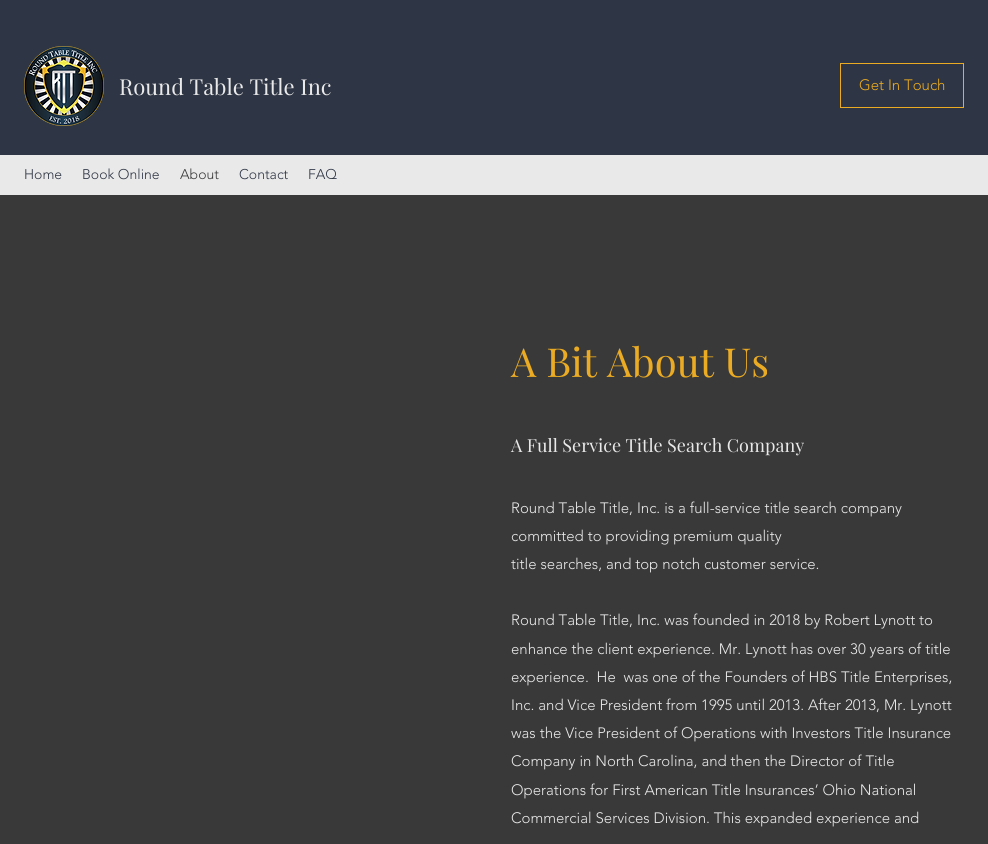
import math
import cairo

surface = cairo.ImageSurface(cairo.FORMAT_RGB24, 988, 844)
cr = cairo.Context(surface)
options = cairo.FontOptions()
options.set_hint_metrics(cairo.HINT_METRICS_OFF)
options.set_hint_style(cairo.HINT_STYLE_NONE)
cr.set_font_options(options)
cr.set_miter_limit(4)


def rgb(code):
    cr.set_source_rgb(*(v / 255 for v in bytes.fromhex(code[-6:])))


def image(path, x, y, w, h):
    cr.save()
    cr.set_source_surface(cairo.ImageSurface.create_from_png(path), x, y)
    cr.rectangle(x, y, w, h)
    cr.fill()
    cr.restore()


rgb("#393939")
cr.paint()
rgb("#2e3544")
cr.rectangle(0, 0, 988, 155)
cr.fill()
image("img/1.png", 24, 46, 80, 80)
cr.rectangle(840.5, 63.5, 123, 44)
rgb("#ebab22")
cr.set_line_width(1)
cr.stroke()
rgb("#e9e9e9")
cr.rectangle(0, 155, 988, 40)
cr.fill()
cr.select_font_face("Playfair Display")
cr.set_font_size(22)
cr.move_to(119, 95)
cr.show_text("Round Table Title Inc")
cr.select_font_face("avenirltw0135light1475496 Light")
cr.set_font_size(15)
rgb("#ebab22")
cr.move_to(859, 90)
cr.show_text("Get In Touch")
cr.set_font_size(14)
rgb("#2e3544")
cr.move_to(24, 179)
cr.show_text("Home")
cr.move_to(82, 179)
cr.show_text("Book Online")
rgb("#393939")
cr.move_to(180, 179)
cr.show_text("About")
rgb("#2e3544")
cr.move_to(239, 179)
cr.show_text("Contact")
cr.move_to(308, 179)
cr.show_text("FAQ")
cr.select_font_face("Playfair Display")
cr.set_font_size(40)
rgb("#ebab22")
cr.move_to(511, 377)
cr.show_text("A Bit About Us")
cr.set_font_size(18)
rgb("#e9e9e9")
cr.move_to(511, 452)
cr.show_text("A Full Service Title Search Company")
cr.select_font_face("avenirltw0135light1475496 Light")
cr.set_font_size(15)
for x, y, s in [
    (511, 513, "Round Table Title, Inc. is a full-service title search company"),
    (511, 541, "committed to providing premium quality"),
    (511, 569, "title searches, and top notch customer service."),
    (511, 625, "Round Table Title, Inc. was founded in 2018 by Robert Lynott to"),
    (511, 654, "enhance the client experience. Mr. Lynott has over 30 years of title"),
    (511, 682, "experience.  He  was one of the Founders of HBS Title Enterprises,"),
    (511, 710, "Inc. and Vice President from 1995 until 2013. After 2013, Mr. Lynott"),
    (511, 738, "was the Vice President of Operations with Investors Title Insurance"),
    (511, 766, "Company in North Carolina, and then the Director of Title"),
    (511, 795, "Operations for First American Title Insurances’ Ohio National"),
    (511, 823, "Commercial Services Division. This expanded experience and"),
]:
    cr.move_to(x, y)
    cr.show_text(s)
surface.write_to_png("page.png")
